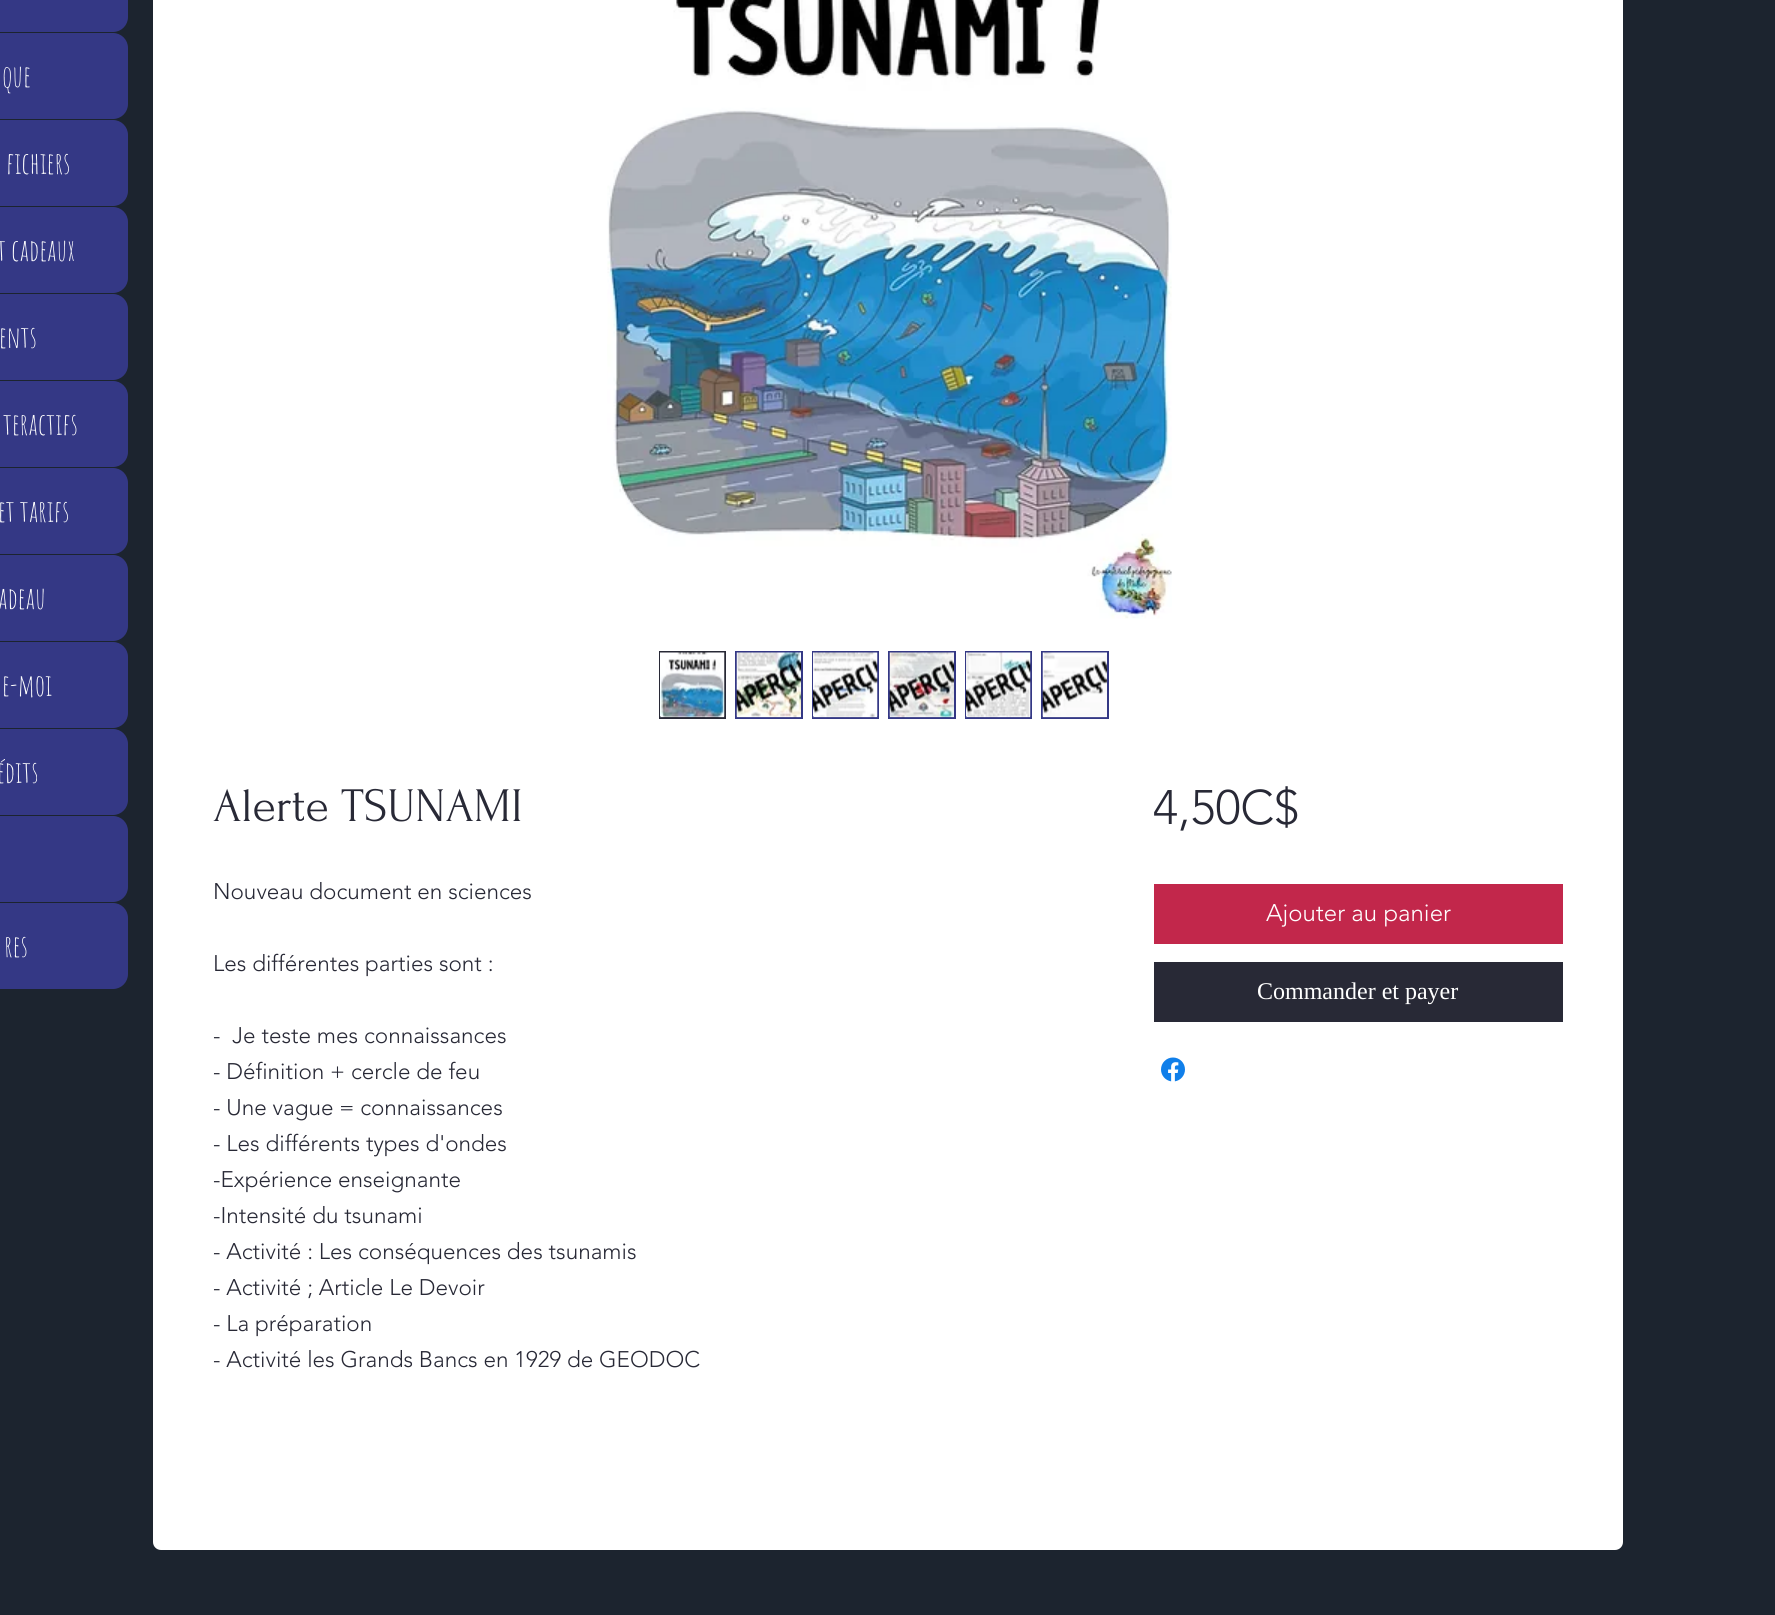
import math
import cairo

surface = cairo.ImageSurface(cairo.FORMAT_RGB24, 1775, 1615)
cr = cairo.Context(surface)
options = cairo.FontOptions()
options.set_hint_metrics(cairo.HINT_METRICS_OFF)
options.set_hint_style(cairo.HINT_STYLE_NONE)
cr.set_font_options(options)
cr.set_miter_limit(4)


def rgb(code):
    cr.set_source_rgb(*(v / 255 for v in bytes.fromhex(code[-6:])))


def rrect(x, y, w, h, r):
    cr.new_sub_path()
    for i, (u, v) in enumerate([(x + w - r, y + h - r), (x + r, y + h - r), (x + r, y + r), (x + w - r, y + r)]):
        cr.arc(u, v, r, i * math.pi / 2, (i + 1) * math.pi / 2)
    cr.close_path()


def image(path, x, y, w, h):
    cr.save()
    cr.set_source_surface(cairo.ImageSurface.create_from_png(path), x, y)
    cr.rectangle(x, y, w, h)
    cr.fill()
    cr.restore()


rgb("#1c242f")
cr.paint()
rgb("#343885")
rrect(-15, -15, 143, 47, 15)
cr.fill()
rrect(-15, 33, 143, 86, 15)
cr.fill()
rrect(-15, 120, 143, 86, 15)
cr.fill()
rrect(-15, 207, 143, 86, 15)
cr.fill()
rrect(-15, 294, 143, 86, 15)
cr.fill()
rrect(-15, 381, 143, 86, 15)
cr.fill()
rrect(-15, 468, 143, 86, 15)
cr.fill()
rrect(-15, 555, 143, 86, 15)
cr.fill()
rrect(-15, 642, 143, 86, 15)
cr.fill()
rrect(-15, 729, 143, 86, 15)
cr.fill()
rrect(-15, 816, 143, 86, 15)
cr.fill()
rrect(-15, 903, 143, 86, 15)
cr.fill()
rgb("#ffffff")
rrect(154, -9, 1468, 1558, 7)
cr.fill_preserve()
cr.stroke()
image("img/1.png", 607, 0, 565, 619)
cr.rectangle(660, 652, 65, 66)
rgb("#282936")
cr.stroke()
image("img/2.png", 660, 652, 65, 66)
cr.rectangle(736, 652, 66, 66)
rgb("#343885")
cr.stroke()
image("img/3.png", 736, 652, 65, 66)
cr.rectangle(813, 652, 65, 66)
cr.stroke()
image("img/4.png", 813, 652, 65, 66)
cr.rectangle(889, 652, 66, 66)
cr.stroke()
image("img/5.png", 889, 652, 65, 66)
cr.rectangle(966, 652, 65, 66)
cr.stroke()
image("img/6.png", 966, 652, 65, 66)
cr.rectangle(1042, 652, 66, 66)
cr.stroke()
image("img/7.png", 1042, 652, 65, 66)
rgb("#c2274b")
cr.rectangle(1154, 884, 409, 60)
cr.fill()
rgb("#282936")
cr.rectangle(1154, 962, 409, 60)
cr.fill()
image("img/8.png", 1161, 1057, 24, 25)
cr.select_font_face("Amatic SC")
cr.set_font_size(30)
rgb("#ffffff")
for x, y, s in [
    (2, 87, "que"),
    (6, 174, "fichiers"),
    (-3, 261, "t cadeaux"),
    (-1, 348, "ents"),
    (3, 435, "teractifs"),
    (-2, 522, "et tarifs"),
    (-2, 609, "adeau"),
    (2, 696, "e-moi"),
    (-3, 783, "édits"),
    (4, 957, "res"),
]:
    cr.move_to(x, y)
    cr.show_text(s)
cr.select_font_face("Forum")
cr.set_font_size(48)
rgb("#282936")
cr.move_to(213, 821)
cr.show_text("Alerte TSUNAMI")
cr.select_font_face("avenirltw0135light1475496 Light")
cr.set_font_size(22.5)
for x, y, s in [
    (213, 899, "Nouveau document en sciences"),
    (213, 971, "Les différentes parties sont :"),
    (213, 1043, "-  Je teste mes connaissances"),
    (213, 1079, "- Définition + cercle de feu"),
    (213, 1115, "- Une vague = connaissances"),
    (213, 1151, "- Les différents types d'ondes"),
    (213, 1187, "-Expérience enseignante"),
    (213, 1223, "-Intensité du tsunami"),
    (213, 1259, "- Activité : Les conséquences des tsunamis"),
    (213, 1295, "- Activité ; Article Le Devoir"),
    (213, 1331, "- La préparation"),
    (213, 1367, "- Activité les Grands Bancs en 1929 de GEODOC"),
]:
    cr.move_to(x, y)
    cr.show_text(s)
cr.set_font_size(48)
cr.move_to(1153, 824)
cr.show_text("4,50C$")
cr.set_font_size(24)
rgb("#ffffff")
cr.move_to(1266, 921)
cr.show_text("Ajouter au panier")
cr.save()
cr.rectangle(1257, 977, 201, 30)
cr.clip()
cr.select_font_face("Liberation Serif")
cr.move_to(1257, 999)
cr.show_text("Commander et payer")
cr.restore()
surface.write_to_png("page.png")
